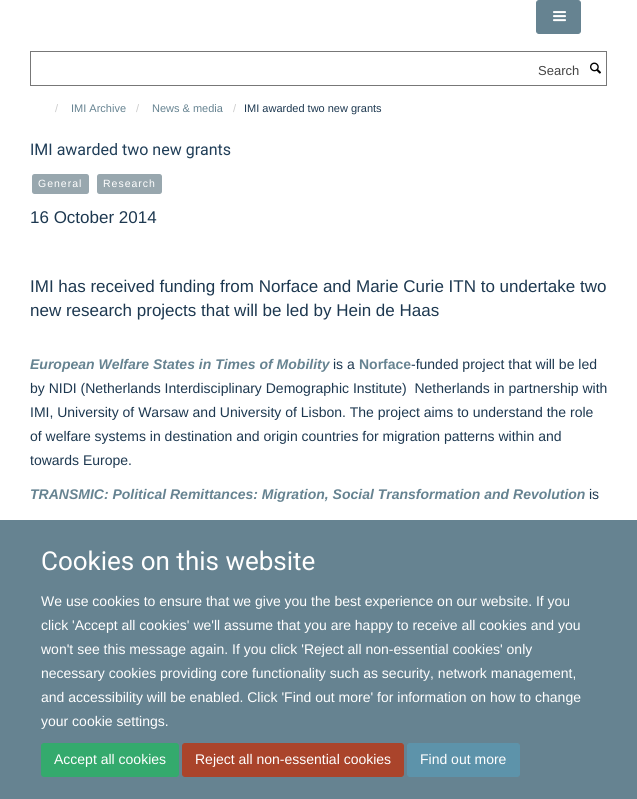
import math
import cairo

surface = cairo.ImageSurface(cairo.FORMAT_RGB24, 637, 799)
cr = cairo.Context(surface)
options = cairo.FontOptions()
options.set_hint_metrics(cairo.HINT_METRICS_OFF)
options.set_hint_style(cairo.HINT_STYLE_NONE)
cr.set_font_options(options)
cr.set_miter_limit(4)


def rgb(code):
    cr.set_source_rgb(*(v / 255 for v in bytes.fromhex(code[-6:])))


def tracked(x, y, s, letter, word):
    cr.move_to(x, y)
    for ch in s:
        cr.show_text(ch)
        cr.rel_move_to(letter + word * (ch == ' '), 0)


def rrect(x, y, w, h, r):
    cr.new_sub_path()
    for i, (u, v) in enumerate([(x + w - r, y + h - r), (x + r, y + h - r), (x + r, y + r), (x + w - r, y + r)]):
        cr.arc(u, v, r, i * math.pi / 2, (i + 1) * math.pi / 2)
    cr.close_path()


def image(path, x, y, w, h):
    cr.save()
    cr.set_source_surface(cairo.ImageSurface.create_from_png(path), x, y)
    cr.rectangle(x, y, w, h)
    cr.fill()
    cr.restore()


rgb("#ffffff")
cr.paint()
rgb("#668391")
rrect(536.5, 0.5, 44, 33, 2.5)
cr.fill_preserve()
cr.set_line_width(1)
cr.stroke()
image("img/1.png", 553, 11, 13, 11)
cr.rectangle(30.5, 51.5, 576, 34)
rgb("#777777")
cr.stroke()
image("img/2.png", 590, 62, 11, 12)
rgb("#98a7ae")
rrect(32, 174, 57, 20, 2.5)
cr.fill()
rrect(97, 174, 65, 20, 2.5)
cr.fill()
rgb("#668391")
cr.rectangle(0, 520, 637, 279)
cr.fill()
rgb("#34aa6d")
rrect(41.5, 743.5, 137, 33, 2.5)
cr.fill_preserve()
cr.stroke()
rgb("#aa442b")
rrect(182.5, 743.5, 221, 33, 2.5)
cr.fill_preserve()
cr.stroke()
rgb("#5d93aa")
rrect(407.5, 743.5, 112, 33, 2.5)
cr.fill_preserve()
cr.stroke()
cr.select_font_face("Liberation Sans")
cr.set_font_size(13)
rgb("#444444")
cr.move_to(538, 75)
cr.show_text("Search")
cr.set_font_size(11)
rgb("#cccccc")
cr.move_to(55, 112)
cr.show_text("/")
rgb("#668391")
cr.move_to(71, 112)
cr.show_text("IMI Archive")
rgb("#cccccc")
cr.move_to(136, 112)
cr.show_text("/")
rgb("#668391")
cr.move_to(152, 112)
cr.show_text("News & media")
rgb("#cccccc")
cr.move_to(233, 112)
cr.show_text("/")
rgb("#1d3850")
cr.move_to(244, 112)
cr.show_text("IMI awarded two new grants")
cr.select_font_face("Roboto")
cr.set_font_size(16)
rgb("#203e58")
cr.move_to(30, 155)
cr.show_text("IMI awarded two new grants")
cr.select_font_face("Liberation Sans")
cr.set_font_size(10.5)
rgb("#ffffff")
tracked(38, 187, "General", 1, 0)
tracked(103, 187, "Research", 1, 0)
cr.set_font_size(17)
rgb("#1d3850")
for x, y, s in [
    (30, 223, "16 October 2014"),
    (30, 292, "IMI has received funding from Norface and Marie Curie ITN to undertake two"),
    (30, 316, "new research projects that will be led by Hein de Haas"),
]:
    cr.move_to(x, y)
    cr.show_text(s)
cr.select_font_face("Liberation Sans", cairo.FONT_SLANT_ITALIC, cairo.FONT_WEIGHT_BOLD)
cr.set_font_size(14)
rgb("#668391")
cr.move_to(30, 369)
cr.show_text("European Welfare States in Times of Mobility")
cr.select_font_face("Liberation Sans")
rgb("#1d3850")
cr.move_to(333, 369)
cr.show_text("is a")
cr.select_font_face("Liberation Sans", cairo.FONT_SLANT_NORMAL, cairo.FONT_WEIGHT_BOLD)
rgb("#668391")
cr.move_to(359, 369)
cr.show_text("Norface")
cr.select_font_face("Liberation Sans")
rgb("#1d3850")
for x, y, s in [
    (411, 369, "-funded project that will be led"),
    (30, 393, "by NIDI (Netherlands Interdisciplinary Demographic Institute)  Netherlands in partnership with"),
    (30, 417, "IMI, University of Warsaw and University of Lisbon. The project aims to understand the role"),
    (30, 441, "of welfare systems in destination and origin countries for migration patterns within and"),
    (30, 465, "towards Europe."),
]:
    cr.move_to(x, y)
    cr.show_text(s)
cr.select_font_face("Liberation Sans", cairo.FONT_SLANT_ITALIC, cairo.FONT_WEIGHT_BOLD)
rgb("#668391")
cr.move_to(30, 499)
cr.show_text("TRANSMIC: Political Remittances: Migration, Social Transformation and Revolution")
cr.select_font_face("Liberation Sans")
rgb("#1d3850")
cr.move_to(589, 499)
cr.show_text("is")
cr.select_font_face("Roboto")
cr.set_font_size(26)
rgb("#ffffff")
cr.move_to(41, 570)
cr.show_text("Cookies on this website")
cr.select_font_face("Liberation Sans")
cr.set_font_size(14)
for x, y, s in [
    (41, 606, "We use cookies to ensure that we give you the best experience on our website. If you"),
    (41, 630, "click 'Accept all cookies' we'll assume that you are happy to receive all cookies and you"),
    (41, 654, "won't see this message again. If you click 'Reject all non-essential cookies' only"),
    (41, 678, "necessary cookies providing core functionality such as security, network management,"),
    (41, 702, "and accessibility will be enabled. Click 'Find out more' for information on how to change"),
    (41, 726, "your cookie settings."),
    (54, 764, "Accept all cookies"),
    (195, 764, "Reject all non-essential cookies"),
    (420, 764, "Find out more"),
]:
    cr.move_to(x, y)
    cr.show_text(s)
surface.write_to_png("page.png")
